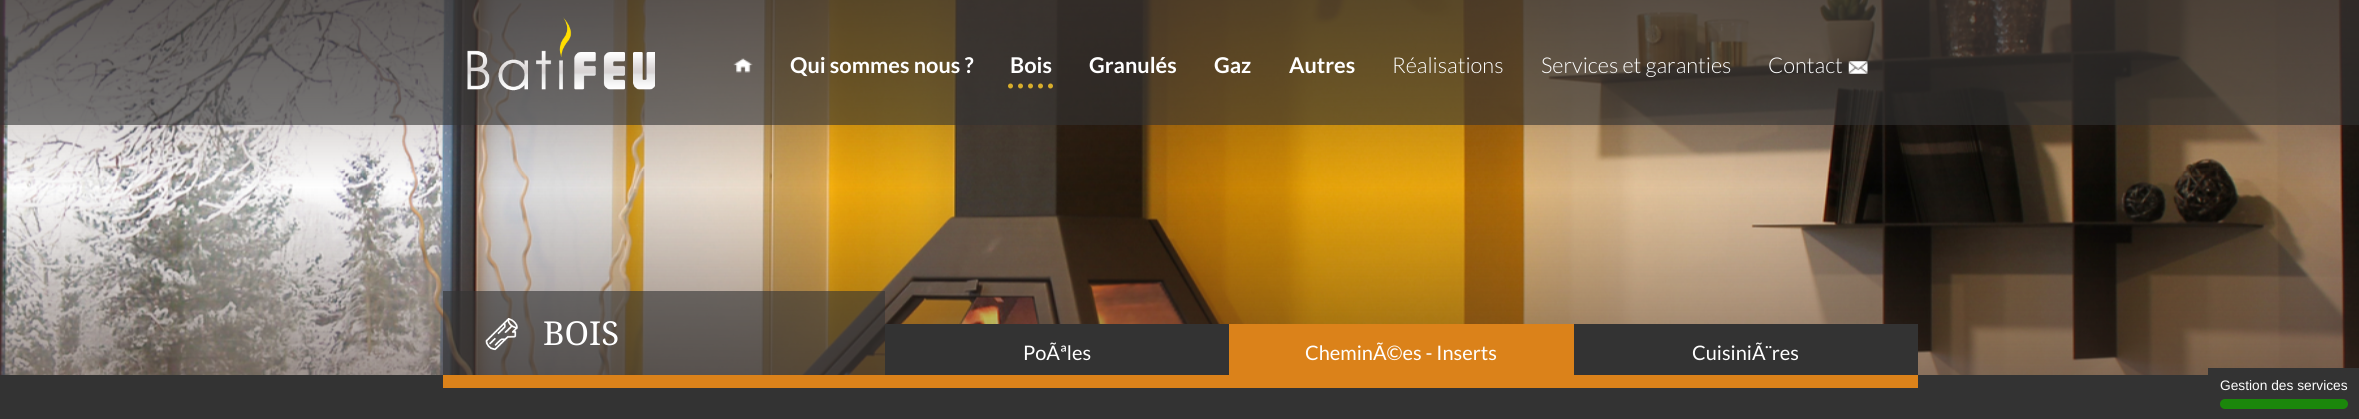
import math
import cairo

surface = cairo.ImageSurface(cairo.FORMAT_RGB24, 2359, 419)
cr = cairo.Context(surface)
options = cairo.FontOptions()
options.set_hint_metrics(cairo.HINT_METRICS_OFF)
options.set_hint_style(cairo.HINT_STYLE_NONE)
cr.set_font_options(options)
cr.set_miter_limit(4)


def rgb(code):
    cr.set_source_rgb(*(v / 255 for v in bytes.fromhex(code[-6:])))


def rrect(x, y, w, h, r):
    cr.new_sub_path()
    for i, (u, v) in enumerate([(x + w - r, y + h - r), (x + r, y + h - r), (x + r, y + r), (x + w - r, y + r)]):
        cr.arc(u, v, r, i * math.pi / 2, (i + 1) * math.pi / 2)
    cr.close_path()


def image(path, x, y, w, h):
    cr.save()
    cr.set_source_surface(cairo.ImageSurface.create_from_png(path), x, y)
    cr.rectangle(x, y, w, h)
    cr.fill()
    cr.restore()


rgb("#333333")
cr.paint()
image("img/1.png", 0, 0, 2359, 375)
cr.set_source_rgba(0.2, 0.2, 0.2, 0.6)
cr.rectangle(0, 0, 2359, 125)
cr.fill()
image("img/2.png", 467, 17, 188, 74)
image("img/3.png", 733, 58, 20, 15)
cr.new_path()
cr.move_to(1010.5, 86)
cr.line_to(1051.5, 86)
rgb("#d7ad2b")
cr.set_line_width(5)
cr.set_line_cap(cairo.LINE_CAP_ROUND)
cr.set_dash([0, 10])
cr.stroke()
image("img/4.png", 1848, 61, 20, 13)
cr.set_source_rgba(0.2, 0.2, 0.2, 0.6)
cr.rectangle(443, 291, 442, 84)
cr.fill()
image("img/5.png", 485, 318, 33, 33)
for x, y, w, h, color in [
    (885, 324, 344, 51, "#333333"),
    (1229, 324, 345, 51, "#db821a"),
    (1574, 324, 344, 51, "#333333"),
    (443, 375, 1475, 13, "#db821a"),
    (2208, 368, 151, 7, "#333333"),
]:
    rgb(color)
    cr.rectangle(x, y, w, h)
    cr.fill()
rgb("#1b870b")
rrect(2220, 399, 128, 10, 5)
cr.fill()
cr.select_font_face("Lato", cairo.FONT_SLANT_NORMAL, cairo.FONT_WEIGHT_BOLD)
cr.set_font_size(21.75)
rgb("#ffffff")
for x, y, s in [
    (790, 73, "Qui sommes nous ?"),
    (1010, 73, "Bois"),
    (1089, 73, "Granulés"),
    (1214, 73, "Gaz"),
    (1289, 73, "Autres"),
]:
    cr.move_to(x, y)
    cr.show_text(s)
cr.select_font_face("Lato Light")
for x, y, s in [
    (1392, 73, "Réalisations"),
    (1541, 73, "Services et garanties"),
    (1768, 73, "Contact"),
]:
    cr.move_to(x, y)
    cr.show_text(s)
cr.select_font_face("Noto Serif")
cr.set_font_size(33)
cr.move_to(543, 345)
cr.show_text("BOIS")
cr.select_font_face("Lato")
cr.set_font_size(20)
for x, y, s in [
    (1023, 360, "PoÃªles"),
    (1305, 360, "CheminÃ©es - Inserts"),
    (1692, 360, "CuisiniÃ¨res"),
]:
    cr.move_to(x, y)
    cr.show_text(s)
cr.select_font_face("Liberation Sans")
cr.set_font_size(13.75)
cr.move_to(2220, 390)
cr.show_text("Gestion des services")
surface.write_to_png("page.png")
